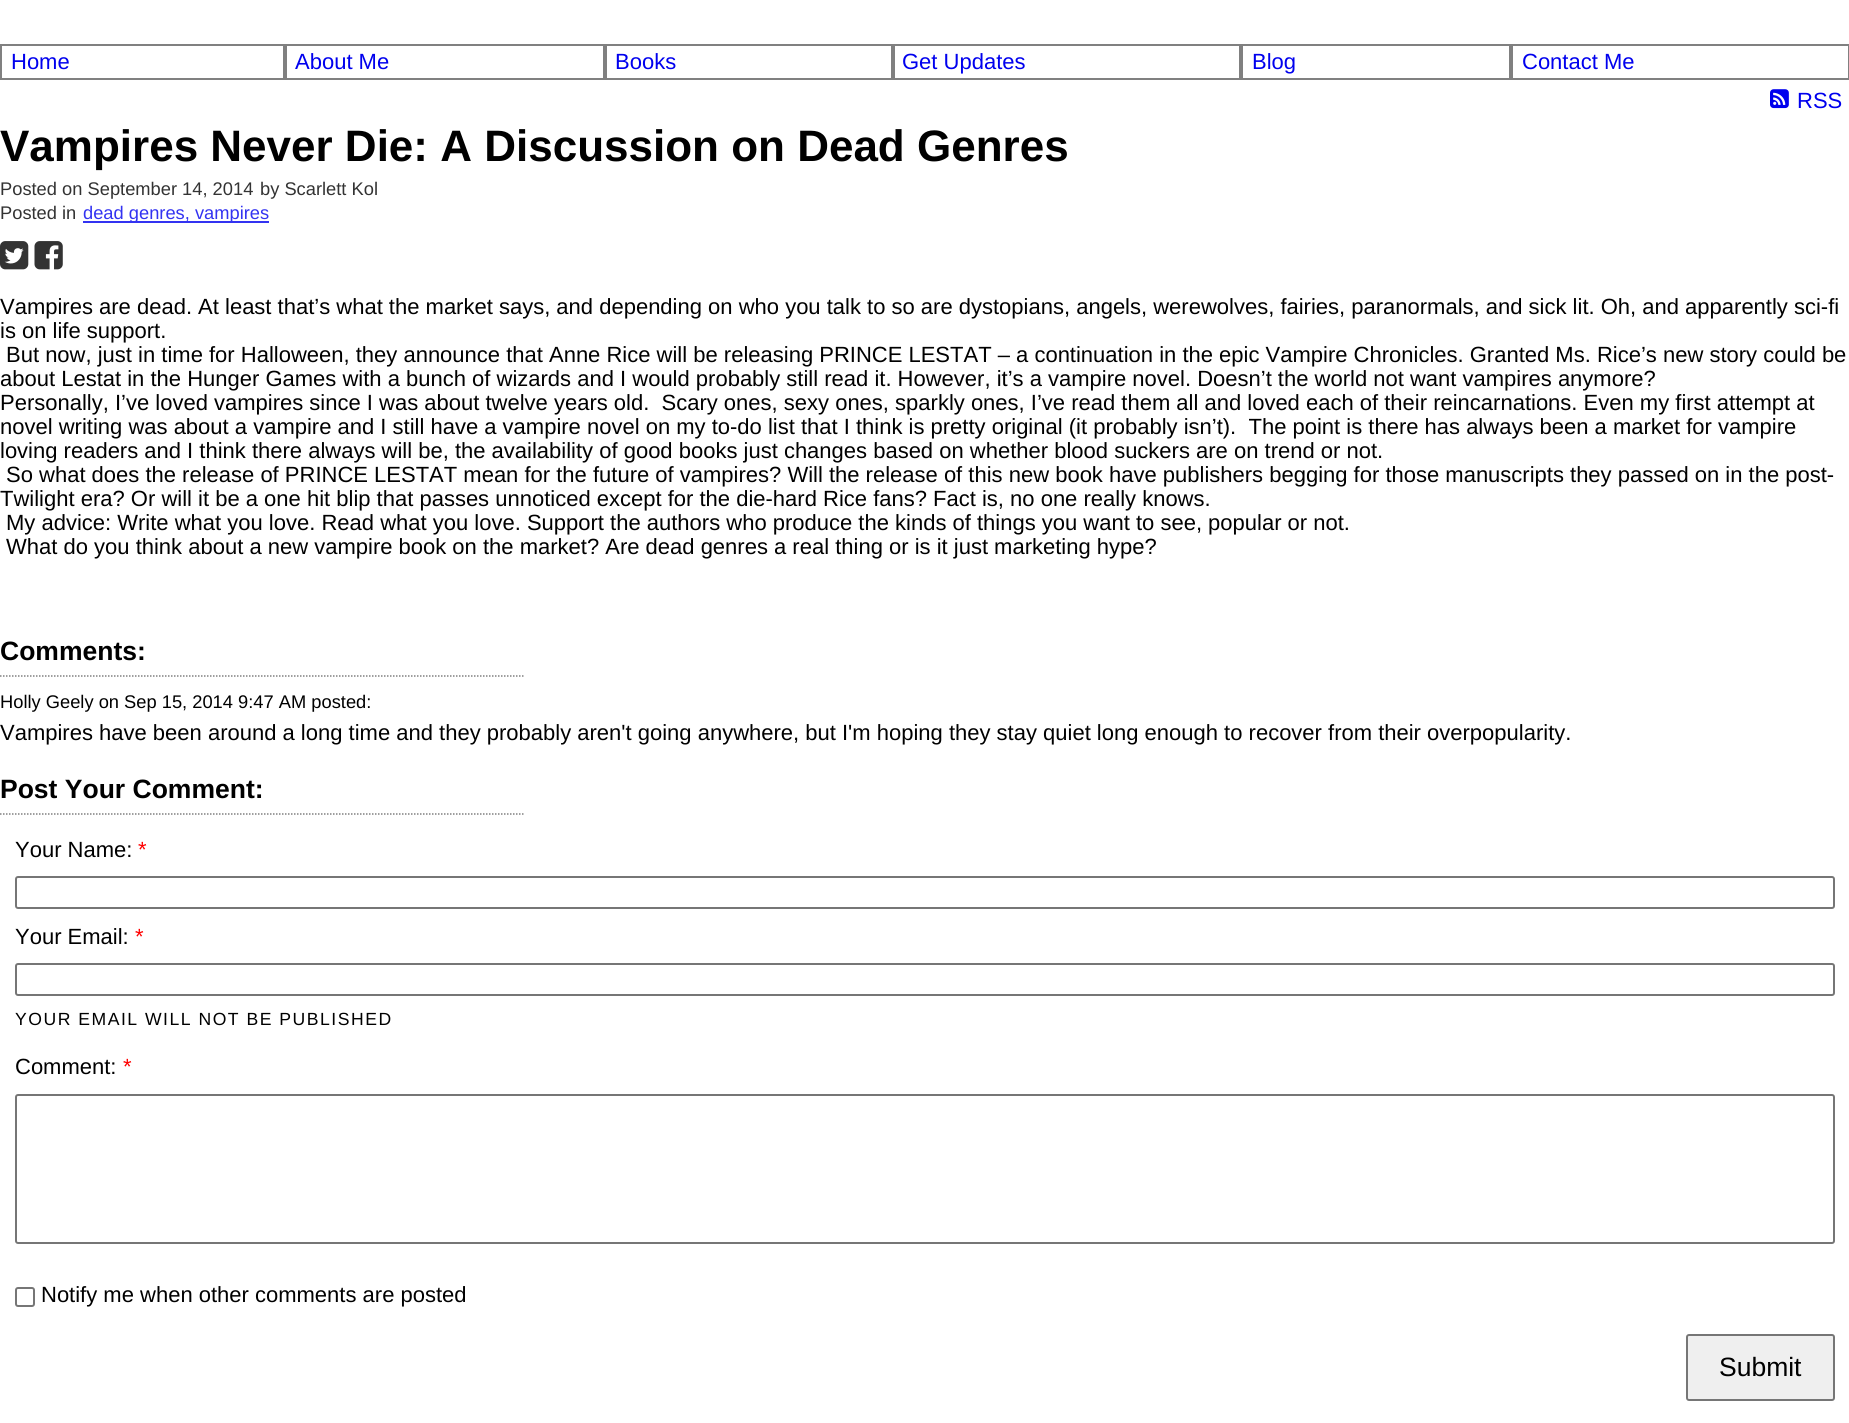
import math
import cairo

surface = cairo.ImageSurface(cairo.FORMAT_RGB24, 1849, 1423)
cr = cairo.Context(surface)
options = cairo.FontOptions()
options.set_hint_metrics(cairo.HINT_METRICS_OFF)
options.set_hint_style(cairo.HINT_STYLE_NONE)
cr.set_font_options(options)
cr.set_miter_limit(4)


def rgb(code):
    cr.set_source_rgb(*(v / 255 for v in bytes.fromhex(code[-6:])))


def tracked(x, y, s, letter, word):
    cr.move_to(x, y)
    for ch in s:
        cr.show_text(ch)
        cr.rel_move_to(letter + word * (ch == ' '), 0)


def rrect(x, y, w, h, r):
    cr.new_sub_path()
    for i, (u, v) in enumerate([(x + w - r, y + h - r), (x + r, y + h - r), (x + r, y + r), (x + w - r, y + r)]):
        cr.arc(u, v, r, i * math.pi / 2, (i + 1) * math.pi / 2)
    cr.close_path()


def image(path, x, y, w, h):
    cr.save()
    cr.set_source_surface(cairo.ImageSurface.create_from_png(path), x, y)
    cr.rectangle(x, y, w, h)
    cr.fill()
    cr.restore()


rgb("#ffffff")
cr.paint()
cr.rectangle(1, 45, 283, 34)
rgb("#808080")
cr.stroke()
cr.rectangle(286, 45, 318, 34)
cr.stroke()
cr.rectangle(606, 45, 286, 34)
cr.stroke()
cr.rectangle(894, 45, 346, 34)
cr.stroke()
cr.rectangle(1242, 45, 268, 34)
cr.stroke()
cr.rectangle(1512, 45, 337, 34)
cr.stroke()
image("img/1.png", 1770, 89, 19, 20)
rgb("#3333f1")
cr.rectangle(83, 221, 186, 2)
cr.fill()
image("img/2.png", 0, 241, 29, 29)
image("img/3.png", 34, 241, 29, 29)
cr.new_path()
cr.move_to(0, 676)
cr.line_to(525, 676)
rgb("#808080")
cr.set_line_width(1.5)
cr.set_dash([1.5, 1.5])
cr.stroke()
cr.new_path()
cr.move_to(0, 814)
cr.line_to(525, 814)
cr.stroke()
rrect(16, 877, 1818, 31, 2)
rgb("#767676")
cr.set_line_width(2)
cr.set_dash([])
cr.stroke()
rrect(16, 964, 1818, 31, 2)
cr.stroke()
rrect(16, 1095, 1818, 148, 2)
cr.stroke()
rrect(16, 1288, 18, 18, 2)
cr.stroke()
rgb("#efefef")
rrect(1687, 1335, 147, 65, 2)
cr.fill_preserve()
rgb("#767676")
cr.stroke()
cr.select_font_face("Liberation Sans")
cr.set_font_size(22)
rgb("#0000ee")
for x, y, s in [
    (11, 69, "Home"),
    (295, 69, "About Me"),
    (615, 69, "Books"),
    (902, 69, "Get Updates"),
    (1252, 69, "Blog"),
    (1522, 69, "Contact Me"),
    (1797, 108, "RSS"),
]:
    cr.move_to(x, y)
    cr.show_text(s)
cr.select_font_face("Liberation Sans", cairo.FONT_SLANT_NORMAL, cairo.FONT_WEIGHT_BOLD)
cr.set_font_size(44)
rgb("#000000")
cr.move_to(0, 161)
cr.show_text("Vampires Never Die: A Discussion on Dead Genres")
cr.select_font_face("Liberation Sans")
cr.set_font_size(18.3)
rgb("#333333")
for x, y, s in [
    (0, 195, "Posted on September 14, 2014"),
    (260, 195, "by Scarlett Kol"),
    (0, 219, "Posted in"),
]:
    cr.move_to(x, y)
    cr.show_text(s)
rgb("#3333f1")
cr.move_to(83, 219)
cr.show_text("dead genres, vampires")
cr.set_font_size(22)
rgb("#000000")
for x, y, s in [
    (0, 314, "Vampires are dead. At least that’s what the market says, and depending on who you talk to so are dystopians, angels, werewolves, fairies, paranormals, and sick lit. Oh, and apparently sci-fi"),
    (0, 338, "is on life support."),
    (6, 362, "But now, just in time for Halloween, they announce that Anne Rice will be releasing PRINCE LESTAT – a continuation in the epic Vampire Chronicles. Granted Ms. Rice’s new story could be"),
    (0, 386, "about Lestat in the Hunger Games with a bunch of wizards and I would probably still read it. However, it’s a vampire novel. Doesn’t the world not want vampires anymore?"),
    (0, 410, "Personally, I’ve loved vampires since I was about twelve years old.  Scary ones, sexy ones, sparkly ones, I’ve read them all and loved each of their reincarnations. Even my first attempt at"),
    (0, 434, "novel writing was about a vampire and I still have a vampire novel on my to-do list that I think is pretty original (it probably isn’t).  The point is there has always been a market for vampire"),
    (0, 458, "loving readers and I think there always will be, the availability of good books just changes based on whether blood suckers are on trend or not."),
    (6, 482, "So what does the release of PRINCE LESTAT mean for the future of vampires? Will the release of this new book have publishers begging for those manuscripts they passed on in the post-"),
    (0, 506, "Twilight era? Or will it be a one hit blip that passes unnoticed except for the die-hard Rice fans? Fact is, no one really knows."),
    (6, 530, "My advice: Write what you love. Read what you love. Support the authors who produce the kinds of things you want to see, popular or not."),
    (6, 554, "What do you think about a new vampire book on the market? Are dead genres a real thing or is it just marketing hype?"),
]:
    cr.move_to(x, y)
    cr.show_text(s)
cr.select_font_face("Liberation Sans", cairo.FONT_SLANT_NORMAL, cairo.FONT_WEIGHT_BOLD)
cr.set_font_size(26.5)
cr.move_to(0, 660)
cr.show_text("Comments:")
cr.select_font_face("Liberation Sans")
cr.set_font_size(18.3)
cr.move_to(0, 708)
cr.show_text("Holly Geely on Sep 15, 2014 9:47 AM posted:")
cr.set_font_size(22)
cr.move_to(0, 740)
cr.show_text("Vampires have been around a long time and they probably aren't going anywhere, but I'm hoping they stay quiet long enough to recover from their overpopularity.")
cr.select_font_face("Liberation Sans", cairo.FONT_SLANT_NORMAL, cairo.FONT_WEIGHT_BOLD)
cr.set_font_size(26.5)
cr.move_to(0, 798)
cr.show_text("Post Your Comment:")
cr.select_font_face("Liberation Sans")
cr.set_font_size(22)
cr.move_to(15, 857)
cr.show_text("Your Name:")
rgb("#ff0000")
cr.move_to(138, 857)
cr.show_text("*")
rgb("#000000")
cr.move_to(15, 944)
cr.show_text("Your Email:")
rgb("#ff0000")
cr.move_to(135, 944)
cr.show_text("*")
cr.set_font_size(17.6)
rgb("#000000")
tracked(15, 1025, "YOUR EMAIL WILL NOT BE PUBLISHED", 1.5, 0)
cr.set_font_size(22)
cr.move_to(15, 1074)
cr.show_text("Comment:")
rgb("#ff0000")
cr.move_to(123, 1074)
cr.show_text("*")
rgb("#000000")
cr.move_to(41, 1302)
cr.show_text("Notify me when other comments are posted")
cr.set_font_size(26.5)
cr.move_to(1719, 1376)
cr.show_text("Submit")
surface.write_to_png("page.png")
